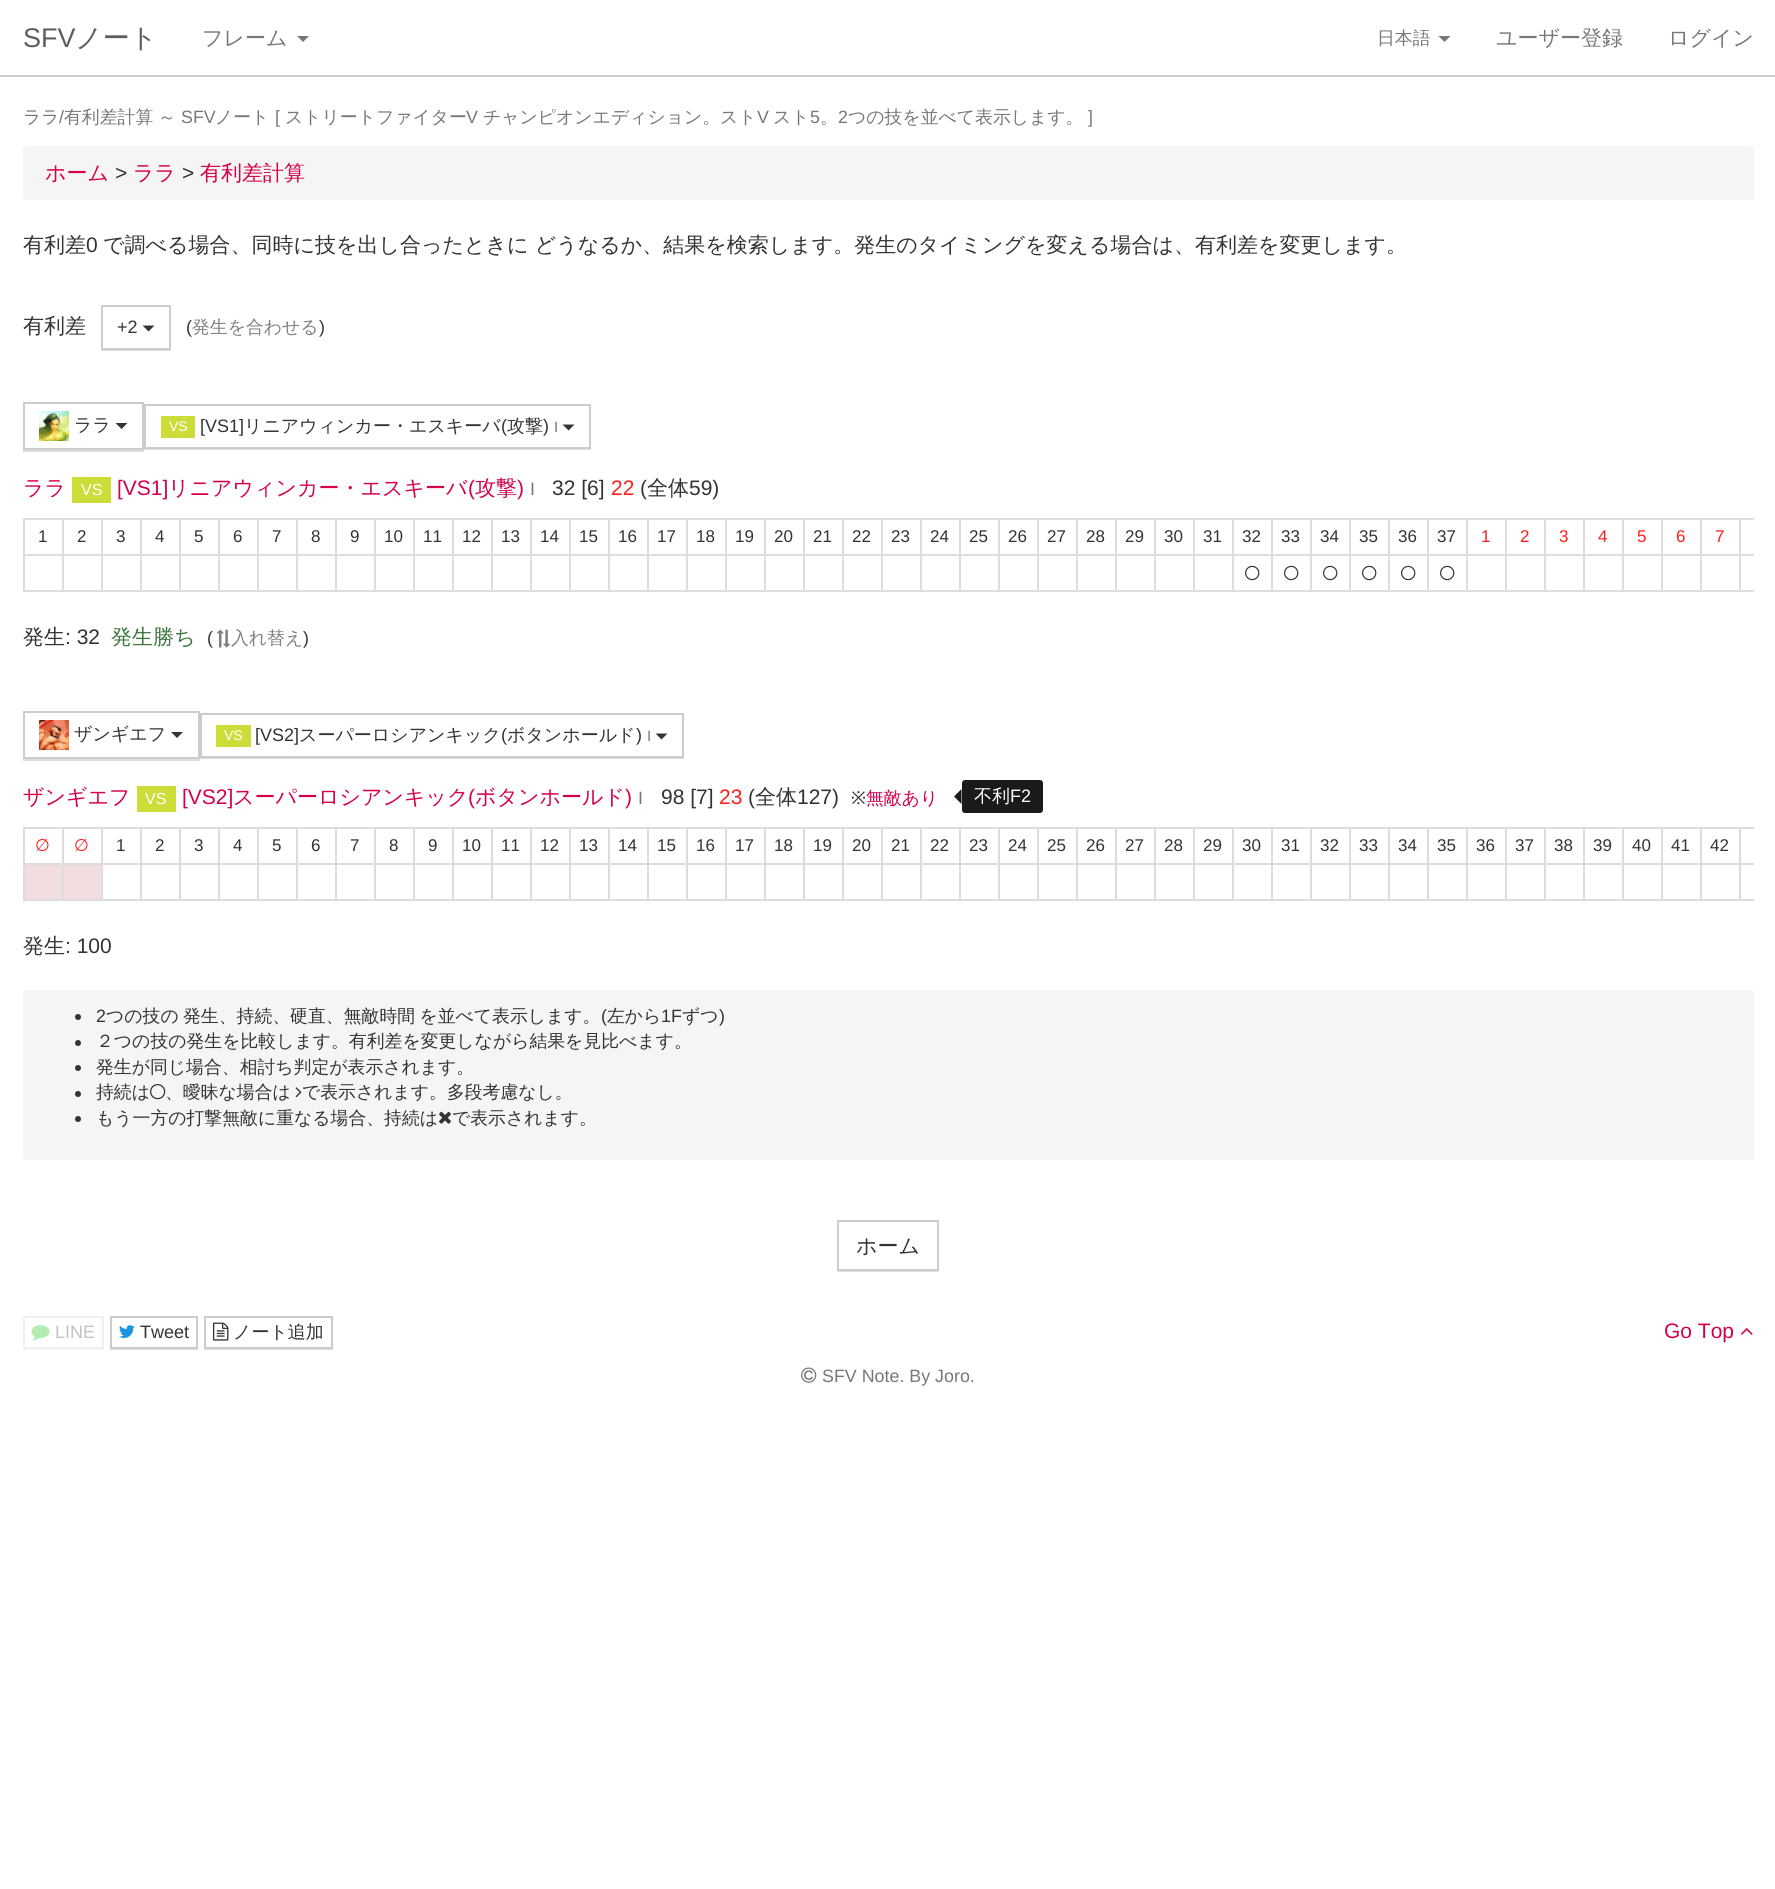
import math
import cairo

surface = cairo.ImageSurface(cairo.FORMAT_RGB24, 1775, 1889)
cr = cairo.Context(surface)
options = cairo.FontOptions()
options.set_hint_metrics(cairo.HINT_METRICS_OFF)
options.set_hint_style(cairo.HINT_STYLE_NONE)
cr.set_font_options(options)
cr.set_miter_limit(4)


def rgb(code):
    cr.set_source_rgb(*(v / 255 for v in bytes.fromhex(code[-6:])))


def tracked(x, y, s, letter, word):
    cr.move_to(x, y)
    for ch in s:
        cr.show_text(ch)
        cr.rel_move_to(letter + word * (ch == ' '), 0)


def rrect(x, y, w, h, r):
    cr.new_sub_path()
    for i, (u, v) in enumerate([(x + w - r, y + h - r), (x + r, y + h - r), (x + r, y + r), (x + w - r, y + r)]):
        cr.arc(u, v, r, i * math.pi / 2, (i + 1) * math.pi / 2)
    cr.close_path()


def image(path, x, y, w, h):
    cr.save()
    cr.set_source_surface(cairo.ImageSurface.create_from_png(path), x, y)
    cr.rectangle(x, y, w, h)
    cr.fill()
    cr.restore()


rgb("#ffffff")
cr.paint()
rgb("#cccccc")
cr.rectangle(0, 75, 1775, 2)
cr.fill()
rgb("#777777")
cr.new_path()
cr.move_to(297, 36)
cr.line_to(309, 36)
cr.line_to(303, 42)
cr.close_path()
cr.fill()
cr.new_path()
cr.move_to(1438.5, 36)
cr.line_to(1450.5, 36)
cr.line_to(1444.5, 42)
cr.close_path()
cr.fill()
rgb("#f5f5f5")
rrect(23, 146, 1731, 54, 3)
cr.fill()
rgb("#dddddd")
cr.rectangle(101, 350, 70, 1)
cr.fill()
cr.rectangle(102, 306, 68, 43)
rgb("#cccccc")
cr.stroke()
rgb("#333333")
cr.new_path()
cr.move_to(142.5, 325.5)
cr.line_to(154.5, 325.5)
cr.line_to(148.5, 331.5)
cr.close_path()
cr.fill()
rgb("#dddddd")
cr.rectangle(23, 450, 121, 2)
cr.fill()
cr.rectangle(24, 403, 119, 46)
rgb("#cccccc")
cr.stroke()
image("img/1.png", 39, 411, 30, 30)
rgb("#333333")
cr.new_path()
cr.move_to(115.5, 423)
cr.line_to(127.5, 423)
cr.line_to(121.5, 429)
cr.close_path()
cr.fill()
rgb("#dddddd")
cr.rectangle(144, 449, 447, 1)
cr.fill()
cr.rectangle(145, 405, 445, 43)
rgb("#cccccc")
cr.stroke()
rgb("#cddc39")
cr.rectangle(161, 416, 34, 22)
cr.fill()
rgb("#333333")
cr.new_path()
cr.move_to(562.5, 424.5)
cr.line_to(574.5, 424.5)
cr.line_to(568.5, 430.5)
cr.close_path()
cr.fill()
for x, y, w, h, color in [
    (72, 477, 39, 26, "#cddc39"),
    (23, 518, 1731, 2, "#dddddd"),
    (23, 590, 1731, 2, "#dddddd"),
    (23, 518, 2, 73, "#dddddd"),
    (1739, 554, 15, 2, "#dddddd"),
    (1739, 554, 2, 37, "#dddddd"),
    (1700, 554, 40, 2, "#dddddd"),
    (1700, 554, 2, 37, "#dddddd"),
    (1661, 554, 40, 2, "#dddddd"),
    (1661, 554, 2, 37, "#dddddd"),
    (1622, 554, 40, 2, "#dddddd"),
    (1622, 554, 2, 37, "#dddddd"),
    (1583, 554, 40, 2, "#dddddd"),
    (1583, 554, 2, 37, "#dddddd"),
    (1544, 554, 40, 2, "#dddddd"),
    (1544, 554, 2, 37, "#dddddd"),
    (1505, 554, 40, 2, "#dddddd"),
    (1505, 554, 2, 37, "#dddddd"),
    (1466, 554, 40, 2, "#dddddd"),
    (1466, 554, 2, 37, "#dddddd"),
    (1427, 554, 40, 2, "#dddddd"),
    (1427, 554, 2, 37, "#dddddd"),
    (1388, 554, 40, 2, "#dddddd"),
    (1388, 554, 2, 37, "#dddddd"),
    (1349, 554, 40, 2, "#dddddd"),
    (1349, 554, 2, 37, "#dddddd"),
    (1310, 554, 40, 2, "#dddddd"),
    (1310, 554, 2, 37, "#dddddd"),
    (1271, 554, 40, 2, "#dddddd"),
    (1271, 554, 2, 37, "#dddddd"),
    (1232, 554, 40, 2, "#dddddd"),
    (1232, 554, 2, 37, "#dddddd"),
    (1193, 554, 40, 2, "#dddddd"),
    (1193, 554, 2, 37, "#dddddd"),
    (1154, 554, 40, 2, "#dddddd"),
    (1154, 554, 2, 37, "#dddddd"),
    (1115, 554, 40, 2, "#dddddd"),
    (1115, 554, 2, 37, "#dddddd"),
    (1076, 554, 40, 2, "#dddddd"),
    (1076, 554, 2, 37, "#dddddd"),
    (1037, 554, 40, 2, "#dddddd"),
    (1037, 554, 2, 37, "#dddddd"),
    (998, 554, 40, 2, "#dddddd"),
    (998, 554, 2, 37, "#dddddd"),
    (959, 554, 40, 2, "#dddddd"),
    (959, 554, 2, 37, "#dddddd"),
    (920, 554, 40, 2, "#dddddd"),
    (920, 554, 2, 37, "#dddddd"),
    (881, 554, 40, 2, "#dddddd"),
    (881, 554, 2, 37, "#dddddd"),
    (842, 554, 40, 2, "#dddddd"),
    (842, 554, 2, 37, "#dddddd"),
    (803, 554, 40, 2, "#dddddd"),
    (803, 554, 2, 37, "#dddddd"),
    (764, 554, 40, 2, "#dddddd"),
    (764, 554, 2, 37, "#dddddd"),
    (725, 554, 40, 2, "#dddddd"),
    (725, 554, 2, 37, "#dddddd"),
    (686, 554, 40, 2, "#dddddd"),
    (686, 554, 2, 37, "#dddddd"),
    (647, 554, 40, 2, "#dddddd"),
    (647, 554, 2, 37, "#dddddd"),
    (608, 554, 40, 2, "#dddddd"),
    (608, 554, 2, 37, "#dddddd"),
    (569, 554, 40, 2, "#dddddd"),
    (569, 554, 2, 37, "#dddddd"),
    (530, 554, 40, 2, "#dddddd"),
    (530, 554, 2, 37, "#dddddd"),
    (491, 554, 40, 2, "#dddddd"),
    (491, 554, 2, 37, "#dddddd"),
    (452, 554, 40, 2, "#dddddd"),
    (452, 554, 2, 37, "#dddddd"),
    (413, 554, 40, 2, "#dddddd"),
    (413, 554, 2, 37, "#dddddd"),
    (374, 554, 40, 2, "#dddddd"),
    (374, 554, 2, 37, "#dddddd"),
    (335, 554, 40, 2, "#dddddd"),
    (335, 554, 2, 37, "#dddddd"),
    (296, 554, 40, 2, "#dddddd"),
    (296, 554, 2, 37, "#dddddd"),
    (257, 554, 40, 2, "#dddddd"),
    (257, 554, 2, 37, "#dddddd"),
    (218, 554, 40, 2, "#dddddd"),
    (218, 554, 2, 37, "#dddddd"),
    (179, 554, 40, 2, "#dddddd"),
    (179, 554, 2, 37, "#dddddd"),
    (140, 554, 40, 2, "#dddddd"),
    (140, 554, 2, 37, "#dddddd"),
    (101, 554, 40, 2, "#dddddd"),
    (101, 554, 2, 37, "#dddddd"),
    (62, 554, 40, 2, "#dddddd"),
    (62, 554, 2, 37, "#dddddd"),
    (23, 554, 40, 2, "#dddddd"),
    (62, 518, 2, 37, "#dddddd"),
    (101, 518, 2, 37, "#dddddd"),
    (140, 518, 2, 37, "#dddddd"),
    (179, 518, 2, 37, "#dddddd"),
    (218, 518, 2, 37, "#dddddd"),
    (257, 518, 2, 37, "#dddddd"),
    (296, 518, 2, 37, "#dddddd"),
    (335, 518, 2, 37, "#dddddd"),
    (374, 518, 2, 37, "#dddddd"),
    (413, 518, 2, 37, "#dddddd"),
    (452, 518, 2, 37, "#dddddd"),
    (491, 518, 2, 37, "#dddddd"),
    (530, 518, 2, 37, "#dddddd"),
    (569, 518, 2, 37, "#dddddd"),
    (608, 518, 2, 37, "#dddddd"),
    (647, 518, 2, 37, "#dddddd"),
    (686, 518, 2, 37, "#dddddd"),
    (725, 518, 2, 37, "#dddddd"),
    (764, 518, 2, 37, "#dddddd"),
    (803, 518, 2, 37, "#dddddd"),
    (842, 518, 2, 37, "#dddddd"),
    (881, 518, 2, 37, "#dddddd"),
    (920, 518, 2, 37, "#dddddd"),
    (959, 518, 2, 37, "#dddddd"),
    (998, 518, 2, 37, "#dddddd"),
    (1037, 518, 2, 37, "#dddddd"),
    (1076, 518, 2, 37, "#dddddd"),
    (1115, 518, 2, 37, "#dddddd"),
    (1154, 518, 2, 37, "#dddddd"),
    (1193, 518, 2, 37, "#dddddd"),
    (1232, 518, 2, 37, "#dddddd"),
    (1271, 518, 2, 37, "#dddddd"),
    (1310, 518, 2, 37, "#dddddd"),
    (1349, 518, 2, 37, "#dddddd"),
    (1388, 518, 2, 37, "#dddddd"),
    (1427, 518, 2, 37, "#dddddd"),
    (1466, 518, 2, 37, "#dddddd"),
    (1505, 518, 2, 37, "#dddddd"),
    (1544, 518, 2, 37, "#dddddd"),
    (1583, 518, 2, 37, "#dddddd"),
    (1622, 518, 2, 37, "#dddddd"),
    (1661, 518, 2, 37, "#dddddd"),
    (1700, 518, 2, 37, "#dddddd"),
    (1739, 518, 2, 37, "#dddddd"),
]:
    rgb(color)
    cr.rectangle(x, y, w, h)
    cr.fill()
image("img/2.png", 1245, 565, 15, 16)
image("img/2.png", 1284, 565, 15, 16)
image("img/2.png", 1323, 565, 15, 16)
image("img/2.png", 1362, 565, 15, 16)
image("img/2.png", 1401, 565, 15, 16)
image("img/2.png", 1440, 565, 15, 16)
image("img/3.png", 216, 629, 14, 19)
cr.new_path()
cr.move_to(23, 759)
cr.line_to(23, 761)
cr.line_to(200, 761)
cr.line_to(200, 713)
cr.line_to(200, 759)
cr.close_path()
cr.fill()
cr.rectangle(24, 712, 175, 46)
rgb("#cccccc")
cr.stroke()
image("img/4.png", 39, 720, 30, 30)
rgb("#333333")
cr.new_path()
cr.move_to(171, 732)
cr.line_to(183, 732)
cr.line_to(177, 738)
cr.close_path()
cr.fill()
rgb("#dddddd")
cr.rectangle(200, 758, 484, 1)
cr.fill()
cr.rectangle(201, 714, 482, 43)
rgb("#cccccc")
cr.stroke()
rgb("#cddc39")
cr.rectangle(216, 725, 35, 22)
cr.fill()
rgb("#333333")
cr.new_path()
cr.move_to(655.5, 733.5)
cr.line_to(667.5, 733.5)
cr.line_to(661.5, 739.5)
cr.close_path()
cr.fill()
rgb("#cddc39")
cr.rectangle(137, 786, 39, 26)
cr.fill()
rgb("#1a1a1a")
cr.new_path()
cr.move_to(961.5, 789)
cr.line_to(961.5, 804)
cr.line_to(954, 796.5)
cr.close_path()
cr.fill()
rrect(962, 780, 81, 33, 3)
cr.fill()
for x, y, w, h, color in [
    (23, 827, 1731, 2, "#dddddd"),
    (23, 899, 1731, 2, "#dddddd"),
    (23, 827, 2, 73, "#dddddd"),
    (1739, 863, 15, 2, "#dddddd"),
    (1739, 863, 2, 37, "#dddddd"),
    (1700, 863, 40, 2, "#dddddd"),
    (1700, 863, 2, 37, "#dddddd"),
    (1661, 863, 40, 2, "#dddddd"),
    (1661, 863, 2, 37, "#dddddd"),
    (1622, 863, 40, 2, "#dddddd"),
    (1622, 863, 2, 37, "#dddddd"),
    (1583, 863, 40, 2, "#dddddd"),
    (1583, 863, 2, 37, "#dddddd"),
    (1544, 863, 40, 2, "#dddddd"),
    (1544, 863, 2, 37, "#dddddd"),
    (1505, 863, 40, 2, "#dddddd"),
    (1505, 863, 2, 37, "#dddddd"),
    (1466, 863, 40, 2, "#dddddd"),
    (1466, 863, 2, 37, "#dddddd"),
    (1427, 863, 40, 2, "#dddddd"),
    (1427, 863, 2, 37, "#dddddd"),
    (1388, 863, 40, 2, "#dddddd"),
    (1388, 863, 2, 37, "#dddddd"),
    (1349, 863, 40, 2, "#dddddd"),
    (1349, 863, 2, 37, "#dddddd"),
    (1310, 863, 40, 2, "#dddddd"),
    (1310, 863, 2, 37, "#dddddd"),
    (1271, 863, 40, 2, "#dddddd"),
    (1271, 863, 2, 37, "#dddddd"),
    (1232, 863, 40, 2, "#dddddd"),
    (1232, 863, 2, 37, "#dddddd"),
    (1193, 863, 40, 2, "#dddddd"),
    (1193, 863, 2, 37, "#dddddd"),
    (1154, 863, 40, 2, "#dddddd"),
    (1154, 863, 2, 37, "#dddddd"),
    (1115, 863, 40, 2, "#dddddd"),
    (1115, 863, 2, 37, "#dddddd"),
    (1076, 863, 40, 2, "#dddddd"),
    (1076, 863, 2, 37, "#dddddd"),
    (1037, 863, 40, 2, "#dddddd"),
    (1037, 863, 2, 37, "#dddddd"),
    (998, 863, 40, 2, "#dddddd"),
    (998, 863, 2, 37, "#dddddd"),
    (959, 863, 40, 2, "#dddddd"),
    (959, 863, 2, 37, "#dddddd"),
    (920, 863, 40, 2, "#dddddd"),
    (920, 863, 2, 37, "#dddddd"),
    (881, 863, 40, 2, "#dddddd"),
    (881, 863, 2, 37, "#dddddd"),
    (842, 863, 40, 2, "#dddddd"),
    (842, 863, 2, 37, "#dddddd"),
    (803, 863, 40, 2, "#dddddd"),
    (803, 863, 2, 37, "#dddddd"),
    (764, 863, 40, 2, "#dddddd"),
    (764, 863, 2, 37, "#dddddd"),
    (725, 863, 40, 2, "#dddddd"),
    (725, 863, 2, 37, "#dddddd"),
    (686, 863, 40, 2, "#dddddd"),
    (686, 863, 2, 37, "#dddddd"),
    (647, 863, 40, 2, "#dddddd"),
    (647, 863, 2, 37, "#dddddd"),
    (608, 863, 40, 2, "#dddddd"),
    (608, 863, 2, 37, "#dddddd"),
    (569, 863, 40, 2, "#dddddd"),
    (569, 863, 2, 37, "#dddddd"),
    (530, 863, 40, 2, "#dddddd"),
    (530, 863, 2, 37, "#dddddd"),
    (491, 863, 40, 2, "#dddddd"),
    (491, 863, 2, 37, "#dddddd"),
    (452, 863, 40, 2, "#dddddd"),
    (452, 863, 2, 37, "#dddddd"),
    (413, 863, 40, 2, "#dddddd"),
    (413, 863, 2, 37, "#dddddd"),
    (374, 863, 40, 2, "#dddddd"),
    (374, 863, 2, 37, "#dddddd"),
    (335, 863, 40, 2, "#dddddd"),
    (335, 863, 2, 37, "#dddddd"),
    (296, 863, 40, 2, "#dddddd"),
    (296, 863, 2, 37, "#dddddd"),
    (257, 863, 40, 2, "#dddddd"),
    (257, 863, 2, 37, "#dddddd"),
    (218, 863, 40, 2, "#dddddd"),
    (218, 863, 2, 37, "#dddddd"),
    (179, 863, 40, 2, "#dddddd"),
    (179, 863, 2, 37, "#dddddd"),
    (140, 863, 40, 2, "#dddddd"),
    (140, 863, 2, 37, "#dddddd"),
    (101, 863, 40, 2, "#dddddd"),
    (101, 863, 2, 37, "#dddddd"),
    (62, 863, 40, 2, "#dddddd"),
    (62, 863, 2, 37, "#dddddd"),
    (23, 863, 40, 2, "#dddddd"),
    (62, 827, 2, 37, "#dddddd"),
    (101, 827, 2, 37, "#dddddd"),
    (140, 827, 2, 37, "#dddddd"),
    (179, 827, 2, 37, "#dddddd"),
    (218, 827, 2, 37, "#dddddd"),
    (257, 827, 2, 37, "#dddddd"),
    (296, 827, 2, 37, "#dddddd"),
    (335, 827, 2, 37, "#dddddd"),
    (374, 827, 2, 37, "#dddddd"),
    (413, 827, 2, 37, "#dddddd"),
    (452, 827, 2, 37, "#dddddd"),
    (491, 827, 2, 37, "#dddddd"),
    (530, 827, 2, 37, "#dddddd"),
    (569, 827, 2, 37, "#dddddd"),
    (608, 827, 2, 37, "#dddddd"),
    (647, 827, 2, 37, "#dddddd"),
    (686, 827, 2, 37, "#dddddd"),
    (725, 827, 2, 37, "#dddddd"),
    (764, 827, 2, 37, "#dddddd"),
    (803, 827, 2, 37, "#dddddd"),
    (842, 827, 2, 37, "#dddddd"),
    (881, 827, 2, 37, "#dddddd"),
    (920, 827, 2, 37, "#dddddd"),
    (959, 827, 2, 37, "#dddddd"),
    (998, 827, 2, 37, "#dddddd"),
    (1037, 827, 2, 37, "#dddddd"),
    (1076, 827, 2, 37, "#dddddd"),
    (1115, 827, 2, 37, "#dddddd"),
    (1154, 827, 2, 37, "#dddddd"),
    (1193, 827, 2, 37, "#dddddd"),
    (1232, 827, 2, 37, "#dddddd"),
    (1271, 827, 2, 37, "#dddddd"),
    (1310, 827, 2, 37, "#dddddd"),
    (1349, 827, 2, 37, "#dddddd"),
    (1388, 827, 2, 37, "#dddddd"),
    (1427, 827, 2, 37, "#dddddd"),
    (1466, 827, 2, 37, "#dddddd"),
    (1505, 827, 2, 37, "#dddddd"),
    (1544, 827, 2, 37, "#dddddd"),
    (1583, 827, 2, 37, "#dddddd"),
    (1622, 827, 2, 37, "#dddddd"),
    (1661, 827, 2, 37, "#dddddd"),
    (1700, 827, 2, 37, "#dddddd"),
    (1739, 827, 2, 37, "#dddddd"),
    (25, 865, 37, 34, "#f2dede"),
    (64, 865, 37, 34, "#f2dede"),
]:
    rgb(color)
    cr.rectangle(x, y, w, h)
    cr.fill()
rgb("#f5f5f5")
rrect(23, 990, 1731, 170, 3)
cr.fill()
rgb("#333333")
cr.arc(78, 1017, 3, 0, 2 * math.pi)
cr.fill()
cr.arc(78, 1043, 3, 0, 2 * math.pi)
cr.fill()
cr.arc(78, 1068, 3, 0, 2 * math.pi)
cr.fill()
cr.arc(78, 1094, 3, 0, 2 * math.pi)
cr.fill()
image("img/5.png", 150, 1084, 16, 16)
image("img/6.png", 295, 1087, 7, 11)
cr.arc(78, 1119, 3, 0, 2 * math.pi)
cr.fill()
image("img/7.png", 439, 1111, 12, 13)
rgb("#dddddd")
cr.rectangle(837, 1271, 102, 1)
cr.fill()
cr.rectangle(838, 1221, 100, 49)
rgb("#cccccc")
cr.stroke()
rgb("#f5f5f5")
cr.new_path()
cr.move_to(23, 1348)
cr.line_to(23, 1350)
cr.line_to(104, 1350)
cr.line_to(104, 1317)
cr.line_to(104, 1348)
cr.close_path()
cr.fill()
cr.rectangle(24, 1317, 79, 31)
rgb("#f0f0f0")
cr.stroke()
image("img/8.png", 31, 1325, 19, 16)
rgb("#dddddd")
cr.rectangle(110, 1349, 88, 1)
cr.fill()
cr.rectangle(111, 1317, 86, 31)
rgb("#cccccc")
cr.stroke()
image("img/9.png", 119, 1325, 16, 13)
rgb("#dddddd")
cr.rectangle(204, 1349, 129, 1)
cr.fill()
cr.rectangle(205, 1317, 127, 31)
rgb("#cccccc")
cr.stroke()
image("img/10.png", 213, 1322, 16, 19)
image("img/11.png", 1741, 1328, 12, 7)
image("img/12.png", 801, 1367, 16, 16)
cr.select_font_face("Liberation Sans")
cr.set_font_size(27)
rgb("#5e5e5e")
cr.move_to(23, 47)
cr.show_text("SFV")
cr.select_font_face("WenQuanYi Zen Hei Medium")
cr.move_to(75, 47)
cr.show_text("ノート")
cr.set_font_size(21)
rgb("#777777")
cr.move_to(202, 45)
cr.show_text("フレーム")
cr.set_font_size(17.85)
cr.move_to(1377, 44)
cr.show_text("日本語")
cr.set_font_size(21)
cr.move_to(1496, 45)
cr.show_text("ユーザー登録")
cr.move_to(1668, 45)
cr.show_text("ログイン")
cr.set_font_size(17.85)
cr.move_to(23, 123)
cr.show_text("ララ")
cr.select_font_face("Liberation Sans")
cr.move_to(59, 123)
cr.show_text("/")
cr.select_font_face("WenQuanYi Zen Hei Medium")
cr.move_to(64, 123)
cr.show_text("有利差計算")
cr.move_to(158, 123)
cr.show_text("～")
cr.select_font_face("Liberation Sans")
cr.move_to(181, 123)
cr.show_text("SFV")
cr.select_font_face("WenQuanYi Zen Hei Medium")
cr.move_to(215, 123)
cr.show_text("ノート")
cr.select_font_face("Liberation Sans")
cr.move_to(275, 123)
cr.show_text("[")
cr.select_font_face("WenQuanYi Zen Hei Medium")
cr.move_to(285, 123)
cr.show_text("ストリートファイター")
cr.select_font_face("Liberation Sans")
cr.move_to(466, 123)
cr.show_text("V")
cr.select_font_face("WenQuanYi Zen Hei Medium")
cr.move_to(483, 123)
cr.show_text("チャンピオンエディション。スト")
cr.select_font_face("Liberation Sans")
cr.move_to(757, 123)
cr.show_text("V")
cr.select_font_face("WenQuanYi Zen Hei Medium")
cr.move_to(773, 123)
cr.show_text("スト")
cr.select_font_face("Liberation Sans")
cr.move_to(810, 123)
cr.show_text("5")
cr.move_to(838, 123)
cr.show_text("2")
cr.select_font_face("WenQuanYi Zen Hei Medium")
cr.move_to(848, 123)
cr.show_text("つの技を並べて表示します。")
cr.select_font_face("Liberation Sans")
cr.move_to(1088, 123)
cr.show_text("]")
cr.select_font_face("WenQuanYi Zen Hei Medium")
cr.move_to(820, 123)
cr.show_text("。")
cr.set_font_size(21)
rgb("#d4004b")
cr.move_to(45, 180)
cr.show_text("ホーム")
cr.select_font_face("Liberation Sans")
rgb("#333333")
cr.move_to(115, 180)
cr.show_text(">")
cr.select_font_face("WenQuanYi Zen Hei Medium")
rgb("#d4004b")
cr.move_to(133, 180)
cr.show_text("ララ")
cr.select_font_face("Liberation Sans")
rgb("#333333")
cr.move_to(182, 180)
cr.show_text(">")
cr.select_font_face("WenQuanYi Zen Hei Medium")
rgb("#d4004b")
cr.move_to(200, 180)
cr.show_text("有利差計算")
rgb("#333333")
cr.move_to(23, 252)
cr.show_text("有利差")
cr.select_font_face("Liberation Sans")
cr.move_to(86, 252)
cr.show_text("0")
cr.select_font_face("WenQuanYi Zen Hei Medium")
cr.move_to(103, 252)
cr.show_text("で調べる場合、同時に技を出し合ったときに どうなるか、結果を検索します。発生のタイミングを変える場合は、有利差を変更します。")
cr.move_to(23, 333)
cr.show_text("有利差")
cr.select_font_face("Liberation Sans")
cr.set_font_size(18)
cr.move_to(117, 333)
cr.show_text("+2")
cr.set_font_size(17.85)
cr.move_to(186, 333)
cr.show_text("(")
cr.select_font_face("WenQuanYi Zen Hei Medium")
rgb("#808080")
cr.move_to(192, 333)
cr.show_text("発生を合わせる")
cr.select_font_face("Liberation Sans")
rgb("#333333")
cr.move_to(319, 333)
cr.show_text(")")
cr.select_font_face("WenQuanYi Zen Hei Medium")
cr.set_font_size(18)
cr.move_to(74, 431)
cr.show_text("ララ")
cr.select_font_face("Liberation Sans")
cr.set_font_size(14)
rgb("#ffffff")
cr.move_to(169, 431)
cr.show_text("VS")
cr.set_font_size(18)
rgb("#333333")
cr.move_to(200, 432)
cr.show_text("[VS1]")
cr.select_font_face("WenQuanYi Zen Hei Medium")
cr.move_to(244, 432)
cr.show_text("リニアウィンカー・エスキーバ")
cr.select_font_face("Liberation Sans")
cr.move_to(501, 432)
cr.show_text("(")
cr.select_font_face("WenQuanYi Zen Hei Medium")
cr.move_to(507, 432)
cr.show_text("攻撃")
cr.select_font_face("Liberation Sans")
cr.move_to(543, 432)
cr.show_text(")")
cr.set_font_size(15)
rgb("#777777")
cr.move_to(554, 432)
cr.show_text("I")
cr.select_font_face("WenQuanYi Zen Hei Medium")
cr.set_font_size(21)
rgb("#d4004b")
cr.move_to(23, 495)
cr.show_text("ララ")
cr.select_font_face("Liberation Sans")
cr.set_font_size(16)
rgb("#ffffff")
cr.move_to(81, 495)
cr.show_text("VS")
cr.set_font_size(21)
rgb("#d4004b")
cr.move_to(117, 495)
cr.show_text("[VS1]")
cr.select_font_face("WenQuanYi Zen Hei Medium")
cr.move_to(168, 495)
cr.show_text("リニアウィンカー・エスキーバ")
cr.select_font_face("Liberation Sans")
cr.move_to(468, 495)
cr.show_text("(")
cr.select_font_face("WenQuanYi Zen Hei Medium")
cr.move_to(475, 495)
cr.show_text("攻撃")
cr.select_font_face("Liberation Sans")
cr.move_to(517, 495)
cr.show_text(")")
cr.set_font_size(17.85)
rgb("#777777")
cr.move_to(530, 495)
cr.show_text("I")
cr.set_font_size(21)
rgb("#333333")
cr.move_to(552, 495)
cr.show_text("32 [6]")
rgb("#ff1e1e")
cr.move_to(611, 495)
cr.show_text("22")
rgb("#333333")
cr.move_to(640, 495)
cr.show_text("(")
cr.select_font_face("WenQuanYi Zen Hei Medium")
cr.move_to(647, 495)
cr.show_text("全体")
cr.select_font_face("Liberation Sans")
cr.move_to(689, 495)
cr.show_text("59)")
cr.set_font_size(17)
for x, y, s in [
    (38, 542, "1"),
    (77, 542, "2"),
    (116, 542, "3"),
    (155, 542, "4"),
    (194, 542, "5"),
    (233, 542, "6"),
    (272, 542, "7"),
    (311, 542, "8"),
    (350, 542, "9"),
    (384, 542, "10"),
    (423, 542, "11"),
    (462, 542, "12"),
    (501, 542, "13"),
    (540, 542, "14"),
    (579, 542, "15"),
    (618, 542, "16"),
    (657, 542, "17"),
    (696, 542, "18"),
    (735, 542, "19"),
    (774, 542, "20"),
    (813, 542, "21"),
    (852, 542, "22"),
    (891, 542, "23"),
    (930, 542, "24"),
    (969, 542, "25"),
    (1008, 542, "26"),
    (1047, 542, "27"),
    (1086, 542, "28"),
    (1125, 542, "29"),
    (1164, 542, "30"),
    (1203, 542, "31"),
    (1242, 542, "32"),
    (1281, 542, "33"),
    (1320, 542, "34"),
    (1359, 542, "35"),
    (1398, 542, "36"),
    (1437, 542, "37"),
]:
    cr.move_to(x, y)
    cr.show_text(s)
rgb("#ff1e1e")
for x, y, s in [
    (1481, 542, "1"),
    (1520, 542, "2"),
    (1559, 542, "3"),
    (1598, 542, "4"),
    (1637, 542, "5"),
    (1676, 542, "6"),
    (1715, 542, "7"),
]:
    cr.move_to(x, y)
    cr.show_text(s)
cr.select_font_face("WenQuanYi Zen Hei Medium")
cr.set_font_size(21)
rgb("#333333")
cr.move_to(23, 644)
cr.show_text("発生")
cr.select_font_face("Liberation Sans")
cr.move_to(65, 644)
cr.show_text(": 32")
cr.select_font_face("WenQuanYi Zen Hei Medium")
rgb("#3c763d")
cr.move_to(111, 644)
cr.show_text("発生勝ち")
cr.select_font_face("Liberation Sans")
cr.set_font_size(17.85)
rgb("#333333")
cr.move_to(207, 644)
cr.show_text("(")
cr.select_font_face("WenQuanYi Zen Hei Medium")
rgb("#808080")
cr.move_to(231, 644)
cr.show_text("入れ替え")
cr.select_font_face("Liberation Sans")
rgb("#333333")
cr.move_to(303, 644)
cr.show_text(")")
cr.select_font_face("WenQuanYi Zen Hei Medium")
cr.set_font_size(18)
cr.move_to(74, 740)
cr.show_text("ザンギエフ")
cr.select_font_face("Liberation Sans")
cr.set_font_size(14)
rgb("#ffffff")
cr.move_to(224, 740)
cr.show_text("VS")
cr.set_font_size(18)
rgb("#333333")
cr.move_to(255, 741)
cr.show_text("[VS2]")
cr.select_font_face("WenQuanYi Zen Hei Medium")
cr.move_to(299, 741)
cr.show_text("スーパーロシアンキック")
cr.select_font_face("Liberation Sans")
cr.move_to(501, 741)
cr.show_text("(")
cr.select_font_face("WenQuanYi Zen Hei Medium")
cr.move_to(507, 741)
cr.show_text("ボタンホールド")
cr.select_font_face("Liberation Sans")
cr.move_to(636, 741)
cr.show_text(")")
cr.set_font_size(15)
rgb("#777777")
cr.move_to(647, 741)
cr.show_text("I")
cr.select_font_face("WenQuanYi Zen Hei Medium")
cr.set_font_size(21)
rgb("#d4004b")
cr.move_to(23, 804)
cr.show_text("ザンギエフ")
cr.select_font_face("Liberation Sans")
cr.set_font_size(16)
rgb("#ffffff")
cr.move_to(145, 804)
cr.show_text("VS")
cr.set_font_size(21)
rgb("#d4004b")
cr.move_to(182, 804)
cr.show_text("[VS2]")
cr.select_font_face("WenQuanYi Zen Hei Medium")
cr.move_to(233, 804)
cr.show_text("スーパーロシアンキック")
cr.select_font_face("Liberation Sans")
cr.move_to(468, 804)
cr.show_text("(")
cr.select_font_face("WenQuanYi Zen Hei Medium")
cr.move_to(475, 804)
cr.show_text("ボタンホールド")
cr.select_font_face("Liberation Sans")
cr.move_to(625, 804)
cr.show_text(")")
cr.set_font_size(17.85)
rgb("#777777")
cr.move_to(638, 804)
cr.show_text("I")
cr.set_font_size(21)
rgb("#333333")
cr.move_to(661, 804)
cr.show_text("98 [7]")
rgb("#ff1e1e")
cr.move_to(719, 804)
cr.show_text("23")
rgb("#333333")
cr.move_to(748, 804)
cr.show_text("(")
cr.select_font_face("WenQuanYi Zen Hei Medium")
cr.move_to(755, 804)
cr.show_text("全体")
cr.select_font_face("Liberation Sans")
cr.move_to(797, 804)
cr.show_text("127)")
cr.select_font_face("Noto Sans")
cr.set_font_size(17.85)
cr.move_to(851, 804)
cr.show_text("※")
cr.select_font_face("WenQuanYi Zen Hei Medium")
rgb("#d4004b")
cr.move_to(866, 804)
cr.show_text("無敵あり")
cr.set_font_size(18)
rgb("#ffffff")
cr.move_to(974, 802)
cr.show_text("不利")
cr.select_font_face("Liberation Sans")
cr.move_to(1010, 802)
cr.show_text("F2")
cr.select_font_face("DejaVu Sans")
cr.set_font_size(17)
rgb("#ff1e1e")
cr.move_to(35, 851)
cr.show_text("∅")
cr.move_to(74, 851)
cr.show_text("∅")
cr.select_font_face("Liberation Sans")
rgb("#333333")
for x, y, s in [
    (116, 851, "1"),
    (155, 851, "2"),
    (194, 851, "3"),
    (233, 851, "4"),
    (272, 851, "5"),
    (311, 851, "6"),
    (350, 851, "7"),
    (389, 851, "8"),
    (428, 851, "9"),
    (462, 851, "10"),
    (501, 851, "11"),
    (540, 851, "12"),
    (579, 851, "13"),
    (618, 851, "14"),
    (657, 851, "15"),
    (696, 851, "16"),
    (735, 851, "17"),
    (774, 851, "18"),
    (813, 851, "19"),
    (852, 851, "20"),
    (891, 851, "21"),
    (930, 851, "22"),
    (969, 851, "23"),
    (1008, 851, "24"),
    (1047, 851, "25"),
    (1086, 851, "26"),
    (1125, 851, "27"),
    (1164, 851, "28"),
    (1203, 851, "29"),
    (1242, 851, "30"),
    (1281, 851, "31"),
    (1320, 851, "32"),
    (1359, 851, "33"),
    (1398, 851, "34"),
    (1437, 851, "35"),
    (1476, 851, "36"),
    (1515, 851, "37"),
    (1554, 851, "38"),
    (1593, 851, "39"),
    (1632, 851, "40"),
    (1671, 851, "41"),
    (1710, 851, "42"),
]:
    cr.move_to(x, y)
    cr.show_text(s)
cr.select_font_face("WenQuanYi Zen Hei Medium")
cr.set_font_size(21)
cr.move_to(23, 953)
cr.show_text("発生")
cr.select_font_face("Liberation Sans")
cr.move_to(65, 953)
cr.show_text(": 100")
cr.set_font_size(17.85)
cr.move_to(96, 1022)
cr.show_text("2")
cr.select_font_face("WenQuanYi Zen Hei Medium")
tracked(106, 1022, "つの技の 発生、持続、硬直、無敵時間 を並べて表示します。", 0, -1)
cr.select_font_face("Liberation Sans")
cr.move_to(601, 1022)
cr.show_text("(")
cr.select_font_face("WenQuanYi Zen Hei Medium")
cr.move_to(607, 1022)
cr.show_text("左から")
cr.select_font_face("Liberation Sans")
cr.move_to(661, 1022)
cr.show_text("1F")
cr.select_font_face("WenQuanYi Zen Hei Medium")
cr.move_to(682, 1022)
cr.show_text("ずつ")
cr.select_font_face("Liberation Sans")
cr.move_to(719, 1022)
cr.show_text(")")
cr.select_font_face("WenQuanYi Zen Hei Medium")
for x, y, s in [
    (96, 1047, "２つの技の発生を比較します。有利差を変更しながら結果を見比べます。"),
    (96, 1073, "発生が同じ場合、相討ち判定が表示されます。"),
    (96, 1098, "持続は"),
    (165, 1098, "、曖昧な場合は"),
    (302, 1098, "で表示されます。多段考慮なし。"),
    (96, 1124, "もう一方の打撃無敵に重なる場合、持続は"),
    (452, 1124, "で表示されます。"),
]:
    cr.move_to(x, y)
    cr.show_text(s)
cr.set_font_size(21)
cr.move_to(856, 1253)
cr.show_text("ホーム")
cr.select_font_face("Liberation Sans")
cr.set_font_size(18)
rgb("#c2c2c2")
cr.move_to(55, 1338)
cr.show_text("LINE")
rgb("#333333")
cr.move_to(140, 1338)
cr.show_text("Tweet")
cr.select_font_face("WenQuanYi Zen Hei Medium")
cr.move_to(233, 1338)
cr.show_text("ノート追加")
cr.select_font_face("Liberation Sans")
cr.set_font_size(21)
rgb("#d4004b")
cr.move_to(1664, 1338)
cr.show_text("Go Top")
cr.set_font_size(17.85)
rgb("#777777")
cr.move_to(822, 1382)
cr.show_text("SFV Note. By Joro.")
surface.write_to_png("page.png")
